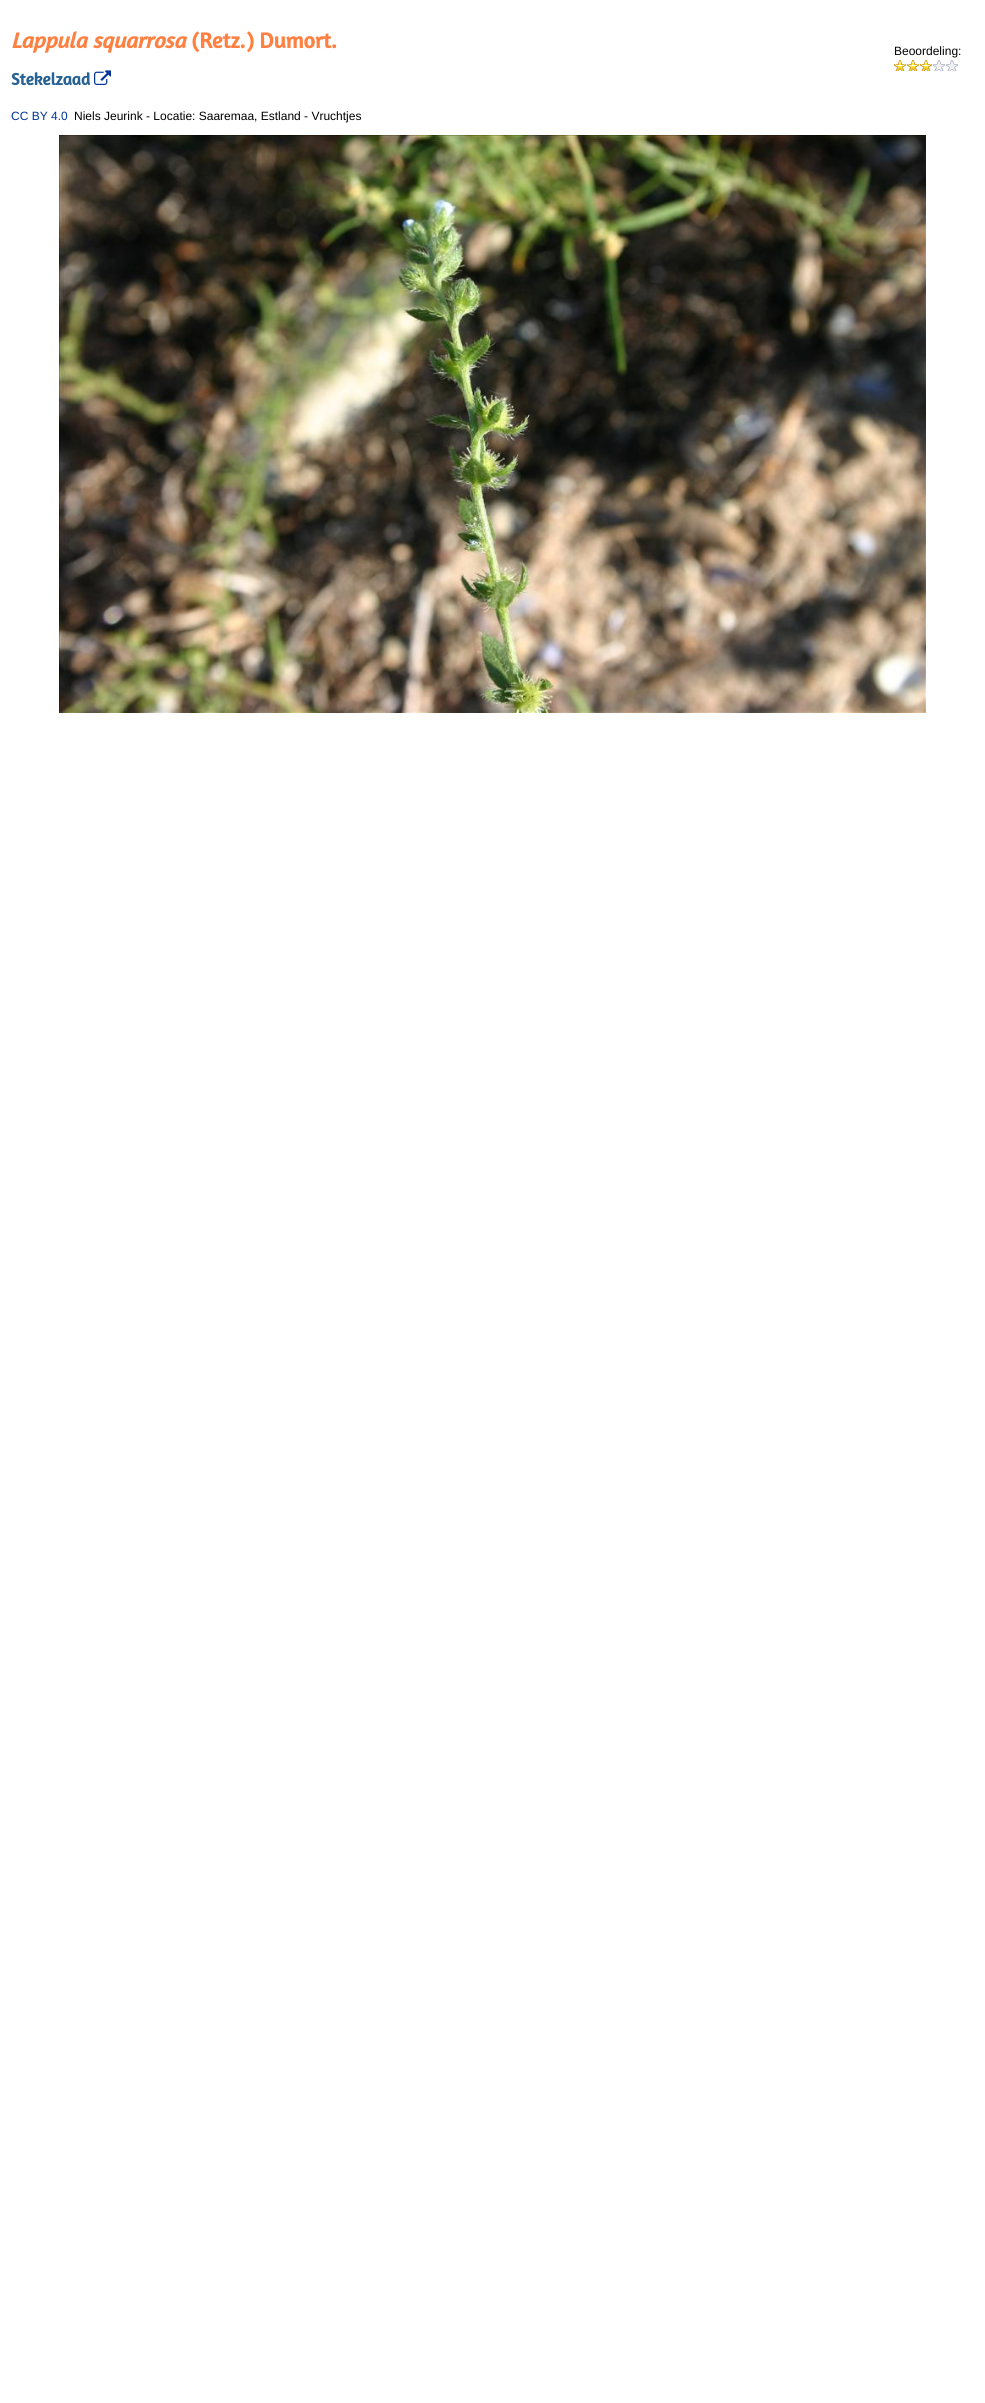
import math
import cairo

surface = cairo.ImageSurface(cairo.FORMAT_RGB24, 985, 2403)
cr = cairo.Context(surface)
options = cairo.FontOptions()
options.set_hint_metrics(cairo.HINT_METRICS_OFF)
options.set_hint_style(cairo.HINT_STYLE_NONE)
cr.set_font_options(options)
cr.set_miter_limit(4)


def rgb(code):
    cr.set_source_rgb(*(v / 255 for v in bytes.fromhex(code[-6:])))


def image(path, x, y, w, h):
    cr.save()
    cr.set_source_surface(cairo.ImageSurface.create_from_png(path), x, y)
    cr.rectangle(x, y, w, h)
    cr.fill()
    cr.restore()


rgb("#ffffff")
cr.paint()
image("img/1.png", 94, 70, 17, 15)
image("img/2.png", 894, 60, 12, 11)
image("img/2.png", 907, 60, 12, 11)
image("img/2.png", 920, 60, 12, 11)
image("img/3.png", 933, 60, 12, 11)
image("img/3.png", 946, 60, 12, 11)
image("img/4.png", 59, 135, 867, 578)
cr.select_font_face("Amaranth", cairo.FONT_SLANT_ITALIC, cairo.FONT_WEIGHT_BOLD)
cr.set_font_size(22)
rgb("#ff8040")
cr.move_to(11, 48)
cr.show_text("Lappula squarrosa")
cr.select_font_face("Amaranth", cairo.FONT_SLANT_NORMAL, cairo.FONT_WEIGHT_BOLD)
cr.move_to(191, 48)
cr.show_text("(Retz.) Dumort.")
cr.set_font_size(17)
rgb("#266294")
cr.move_to(11, 85)
cr.show_text("Stekelzaad")
cr.select_font_face("Liberation Sans")
cr.set_font_size(12)
rgb("#000000")
cr.move_to(894, 55)
cr.show_text("Beoordeling:")
rgb("#003399")
cr.move_to(11, 120)
cr.show_text("CC BY 4.0")
rgb("#000000")
cr.move_to(74, 120)
cr.show_text("Niels Jeurink - Locatie: Saaremaa, Estland - Vruchtjes")
surface.write_to_png("page.png")
